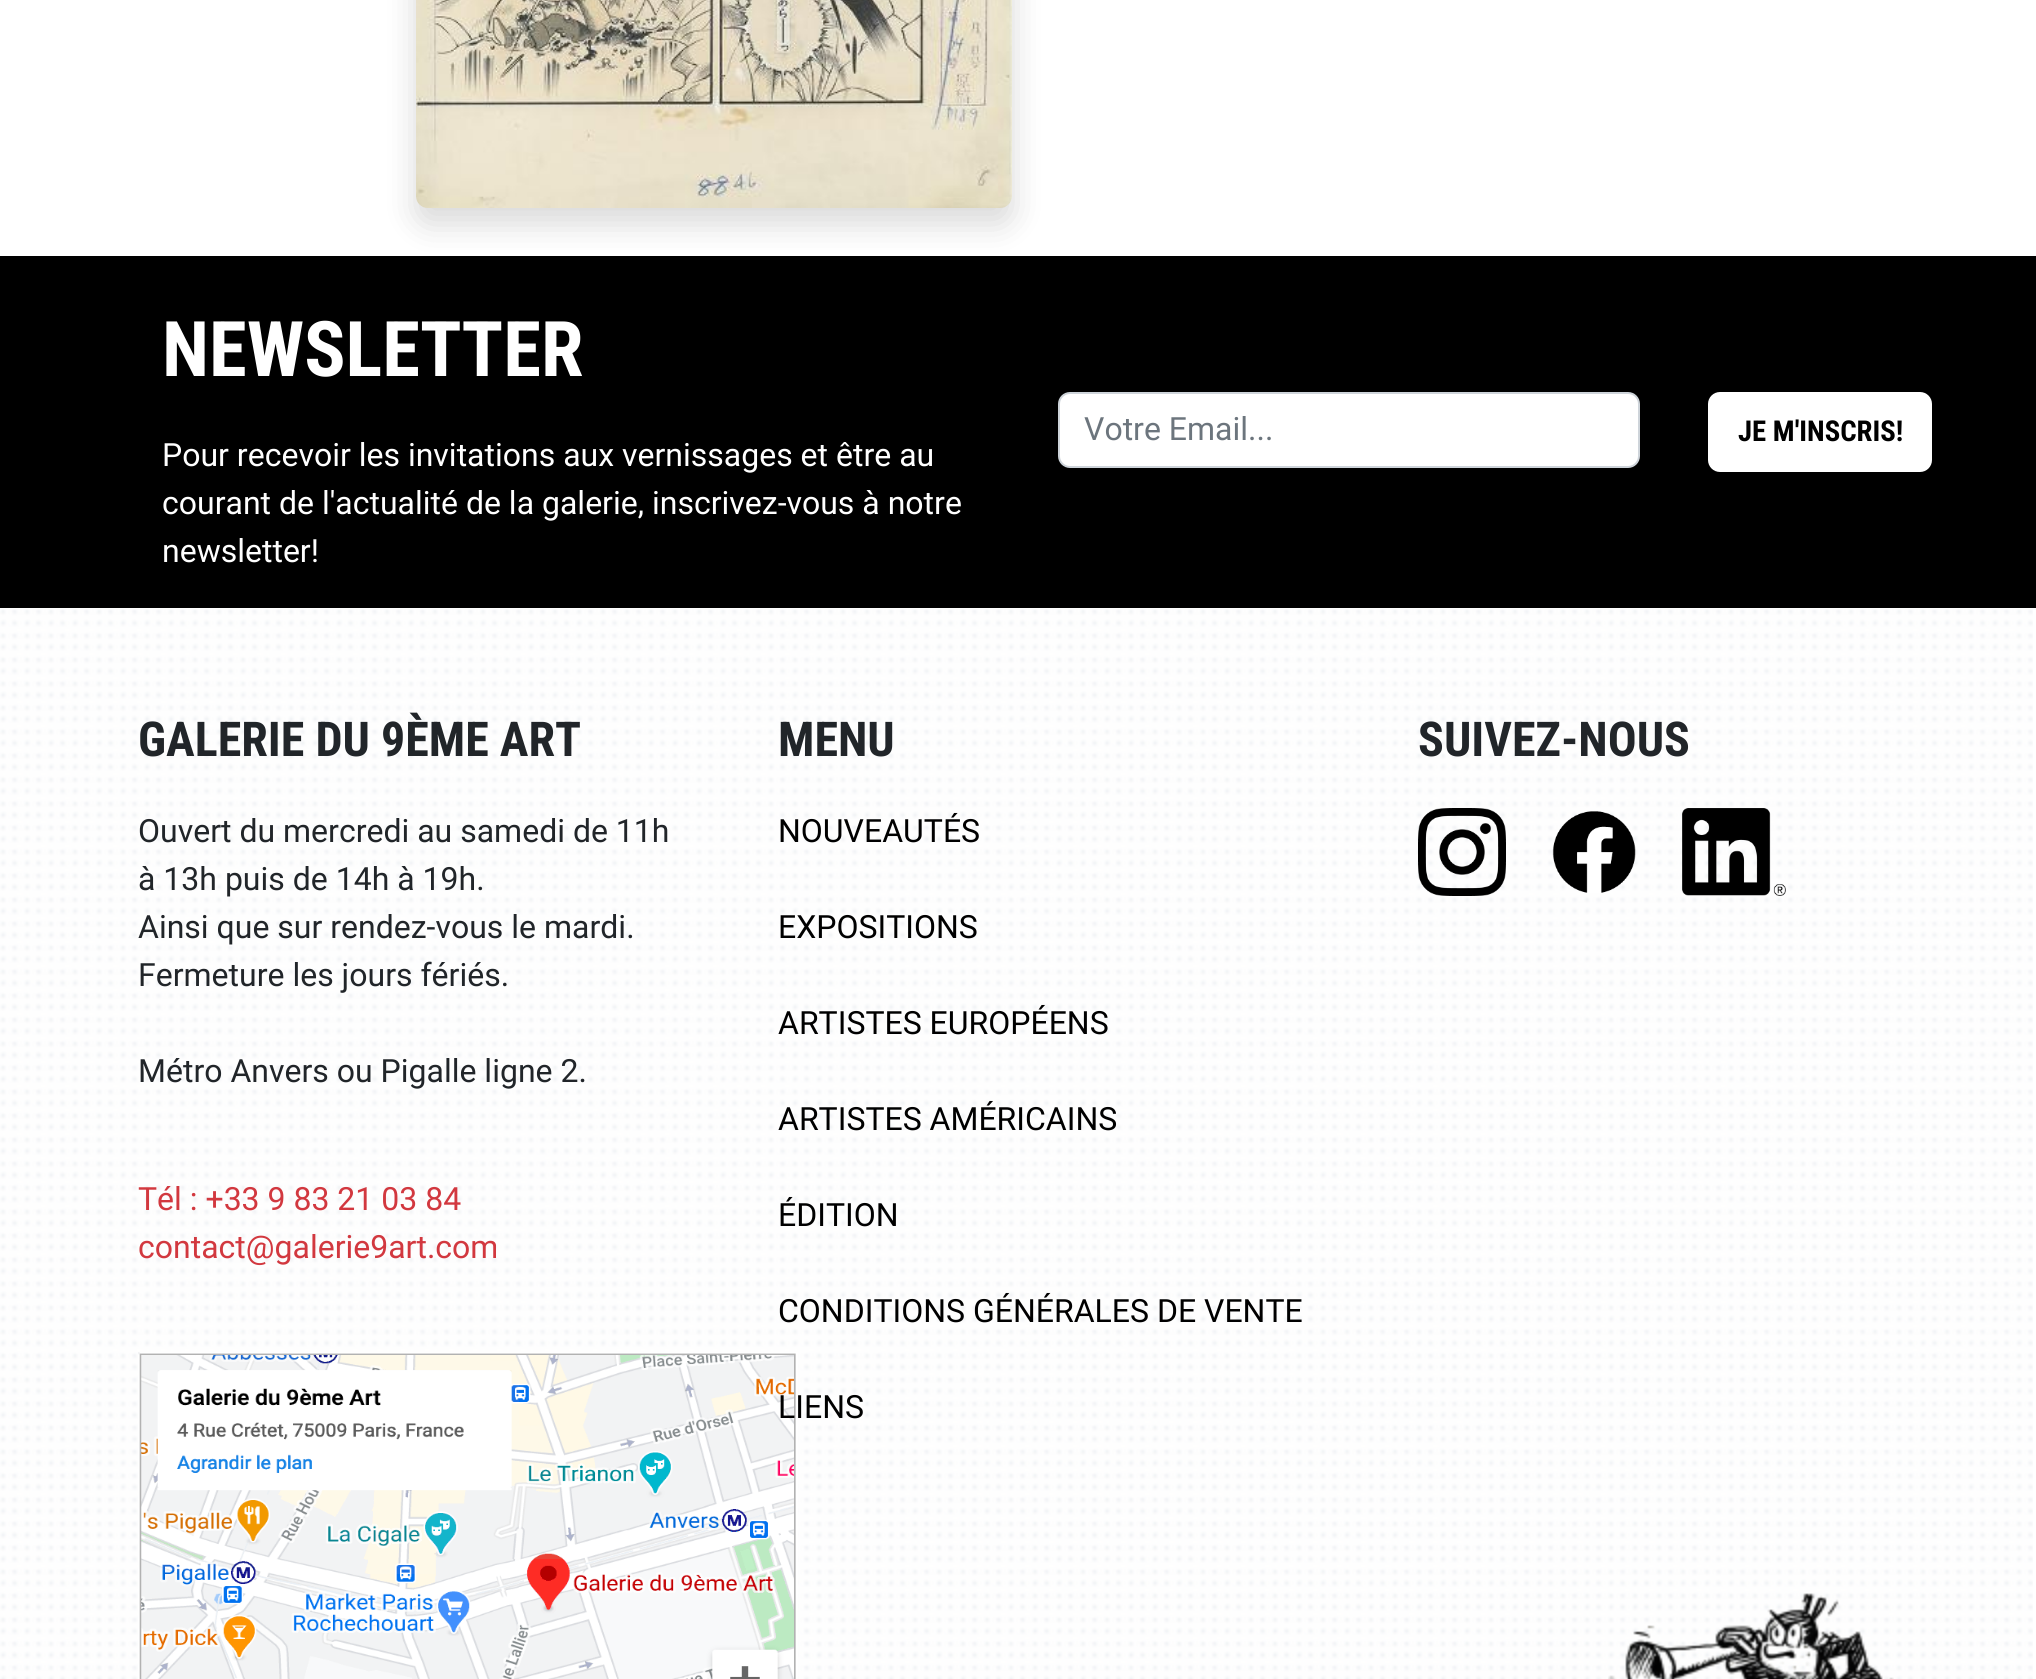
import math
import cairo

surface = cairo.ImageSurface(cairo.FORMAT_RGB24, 2036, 1679)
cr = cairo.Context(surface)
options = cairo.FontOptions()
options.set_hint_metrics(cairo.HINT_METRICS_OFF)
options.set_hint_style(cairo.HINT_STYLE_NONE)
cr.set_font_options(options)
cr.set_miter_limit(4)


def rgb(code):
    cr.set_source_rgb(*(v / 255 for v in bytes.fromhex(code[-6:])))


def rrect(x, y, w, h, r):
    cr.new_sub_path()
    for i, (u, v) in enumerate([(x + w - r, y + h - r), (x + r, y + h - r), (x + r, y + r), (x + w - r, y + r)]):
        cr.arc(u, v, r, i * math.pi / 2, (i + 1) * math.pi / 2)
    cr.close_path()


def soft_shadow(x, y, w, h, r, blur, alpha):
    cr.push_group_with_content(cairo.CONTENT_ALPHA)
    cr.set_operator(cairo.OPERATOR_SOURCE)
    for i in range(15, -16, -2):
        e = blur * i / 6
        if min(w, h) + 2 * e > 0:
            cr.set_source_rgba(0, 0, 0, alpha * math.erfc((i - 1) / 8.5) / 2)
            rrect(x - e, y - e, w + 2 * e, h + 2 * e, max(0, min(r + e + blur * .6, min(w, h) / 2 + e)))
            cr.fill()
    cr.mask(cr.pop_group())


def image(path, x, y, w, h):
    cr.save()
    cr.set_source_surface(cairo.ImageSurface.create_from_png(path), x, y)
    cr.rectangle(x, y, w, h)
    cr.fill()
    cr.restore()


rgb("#ffffff")
cr.paint()
rgb("#000000")
cr.rectangle(0, 256, 2036, 352)
cr.fill()
rgb("#000000")
soft_shadow(416, -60, 596, 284, 12, 16, 0.15)
image("img/1.png", 416, 0, 596, 208)
rgb("#ffffff")
rrect(1059, 393, 580, 74, 11)
cr.fill_preserve()
rgb("#ced4da")
cr.stroke()
rgb("#ffffff")
rrect(1710, 394, 220, 76, 10)
cr.fill_preserve()
cr.set_line_width(4)
cr.stroke()
image("img/2.png", 0, 609, 2033, 1070)
image("img/3.png", 1608, 1593, 286, 86)
image("img/4.png", 138, 1352, 660, 327)
image("img/5.png", 1418, 808, 88, 88)
image("img/6.png", 1552, 811, 84, 82)
image("img/7.png", 1682, 808, 104, 88)
cr.select_font_face("Roboto Condensed", cairo.FONT_SLANT_NORMAL, cairo.FONT_WEIGHT_BOLD)
cr.set_font_size(76.75)
cr.move_to(162, 376)
cr.show_text("NEWSLETTER")
cr.select_font_face("Roboto")
cr.set_font_size(32)
for x, y, s in [
    (162, 466, "Pour recevoir les invitations aux vernissages et être au"),
    (162, 514, "courant de l'actualité de la galerie, inscrivez-vous à notre"),
    (162, 562, "newsletter!"),
]:
    cr.move_to(x, y)
    cr.show_text(s)
rgb("#6c757d")
cr.move_to(1084, 440)
cr.show_text("Votre Email...")
cr.select_font_face("Roboto Condensed", cairo.FONT_SLANT_NORMAL, cairo.FONT_WEIGHT_BOLD)
cr.set_font_size(28.75)
rgb("#000000")
cr.move_to(1738, 441)
cr.show_text("JE M'INSCRIS!")
cr.set_font_size(48)
rgb("#212529")
cr.move_to(138, 756)
cr.show_text("GALERIE DU 9ÈME ART")
cr.select_font_face("Roboto")
cr.set_font_size(32)
for x, y, s in [
    (138, 842, "Ouvert du mercredi au samedi de 11h"),
    (138, 890, "à 13h puis de 14h à 19h."),
    (138, 938, "Ainsi que sur rendez-vous le mardi."),
    (138, 986, "Fermeture les jours fériés."),
    (138, 1082, "Métro Anvers ou Pigalle ligne 2."),
]:
    cr.move_to(x, y)
    cr.show_text(s)
rgb("#d2383f")
cr.move_to(138, 1210)
cr.show_text("Tél : +33 9 83 21 03 84")
cr.move_to(138, 1258)
cr.show_text("contact@galerie9art.com")
cr.select_font_face("Roboto Condensed", cairo.FONT_SLANT_NORMAL, cairo.FONT_WEIGHT_BOLD)
cr.set_font_size(48)
rgb("#212529")
cr.move_to(778, 756)
cr.show_text("MENU")
cr.select_font_face("Roboto")
cr.set_font_size(32)
rgb("#000000")
for x, y, s in [
    (778, 842, "NOUVEAUTÉS"),
    (778, 938, "EXPOSITIONS"),
    (778, 1034, "ARTISTES EUROPÉENS"),
    (778, 1130, "ARTISTES AMÉRICAINS"),
    (778, 1226, "ÉDITION"),
    (778, 1322, "CONDITIONS GÉNÉRALES DE VENTE"),
    (778, 1418, "LIENS"),
]:
    cr.move_to(x, y)
    cr.show_text(s)
cr.select_font_face("Roboto Condensed", cairo.FONT_SLANT_NORMAL, cairo.FONT_WEIGHT_BOLD)
cr.set_font_size(48)
rgb("#212529")
cr.move_to(1418, 756)
cr.show_text("SUIVEZ-NOUS")
surface.write_to_png("page.png")
